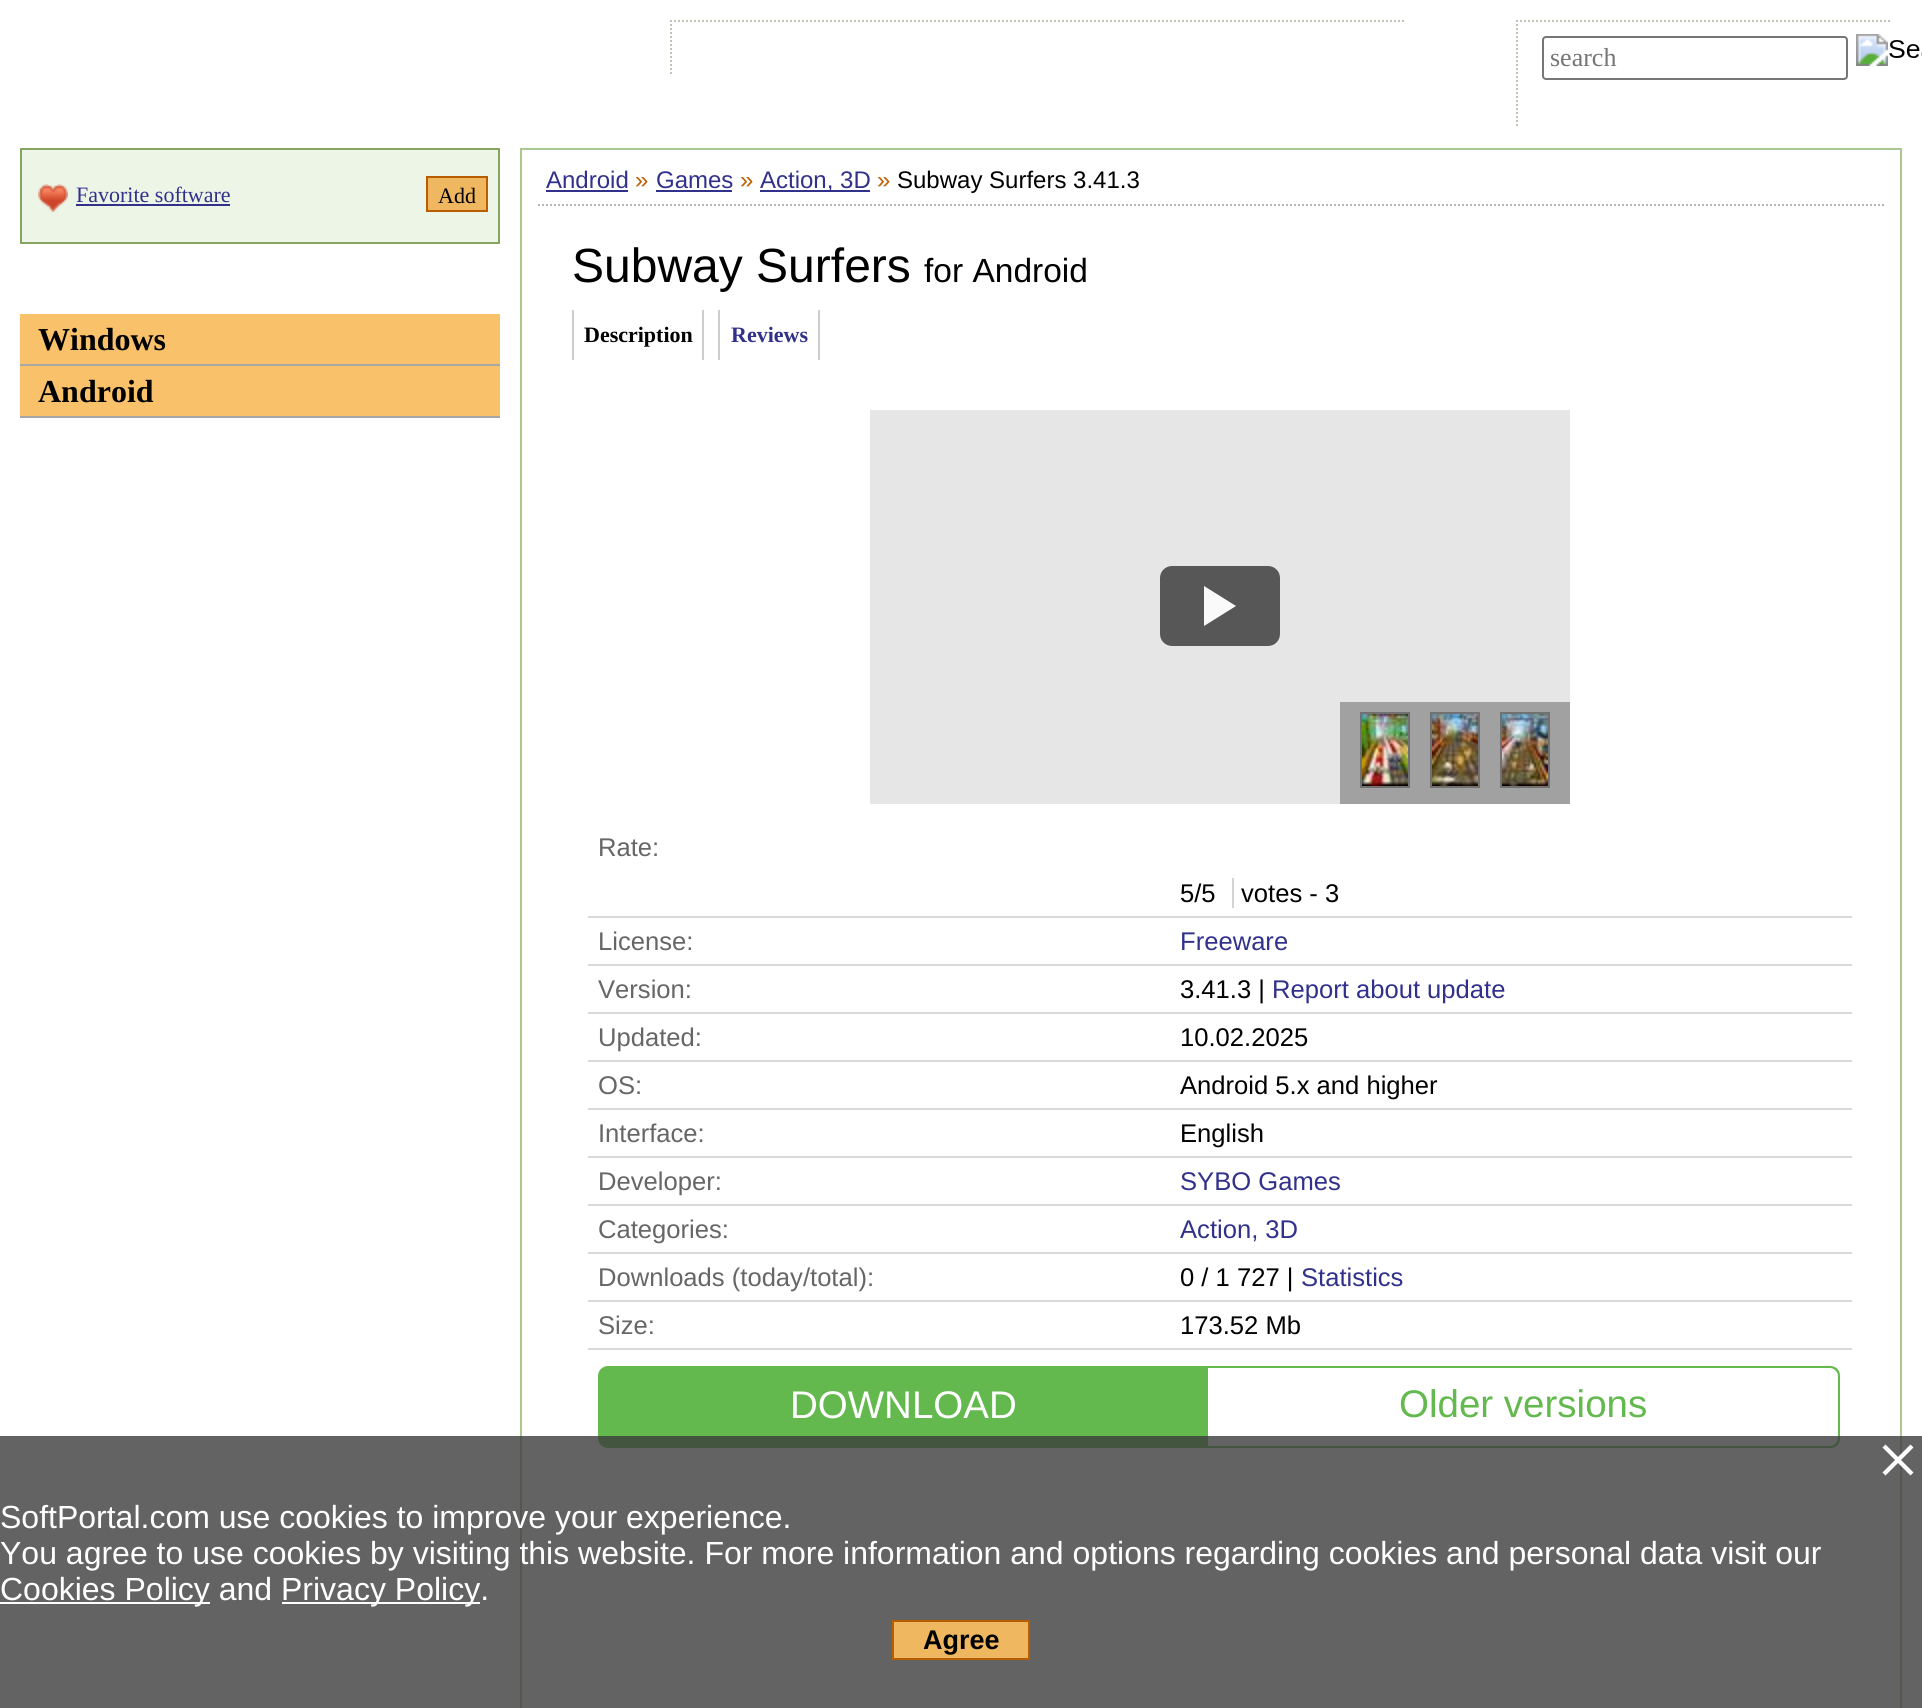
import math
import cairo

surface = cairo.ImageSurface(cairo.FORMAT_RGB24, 1922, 1708)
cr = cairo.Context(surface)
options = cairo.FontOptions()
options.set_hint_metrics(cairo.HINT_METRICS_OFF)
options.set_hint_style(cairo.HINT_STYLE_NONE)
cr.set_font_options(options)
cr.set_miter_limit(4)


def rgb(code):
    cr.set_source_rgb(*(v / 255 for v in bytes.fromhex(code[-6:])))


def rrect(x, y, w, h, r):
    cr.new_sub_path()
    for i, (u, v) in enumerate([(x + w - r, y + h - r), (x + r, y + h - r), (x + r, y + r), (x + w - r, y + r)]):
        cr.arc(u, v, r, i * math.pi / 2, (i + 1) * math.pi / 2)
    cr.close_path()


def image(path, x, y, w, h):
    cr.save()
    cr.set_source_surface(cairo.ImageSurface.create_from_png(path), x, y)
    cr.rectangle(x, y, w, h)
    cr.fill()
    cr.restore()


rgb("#ffffff")
cr.paint()
cr.new_path()
cr.move_to(670, 21)
cr.line_to(1404, 21)
rgb("#bec6b6")
cr.set_dash([2, 2])
cr.stroke()
cr.new_path()
cr.move_to(671, 20)
cr.line_to(671, 74)
cr.stroke()
cr.new_path()
cr.move_to(1516, 21)
cr.line_to(1892, 21)
cr.stroke()
cr.new_path()
cr.move_to(1517, 20)
cr.line_to(1517, 128)
cr.stroke()
rrect(1543, 37, 304, 42, 3)
rgb("#767676")
cr.set_dash([])
cr.stroke()
image("img/1.png", 1856, 34, 66, 32)
rgb("#edf5e6")
cr.rectangle(21, 149, 478, 94)
cr.fill_preserve()
rgb("#85a663")
cr.stroke()
image("img/2.png", 38, 184, 30, 28)
rgb("#31318c")
cr.rectangle(76, 204, 154, 2)
cr.fill()
rgb("#efb860")
cr.rectangle(427, 177, 60, 34)
cr.fill_preserve()
rgb("#b95d00")
cr.stroke()
for x, y, w, h, color in [
    (20, 314, 480, 50, "#fac16b"),
    (20, 364, 480, 2, "#a6a6a6"),
    (20, 366, 480, 50, "#fac16b"),
    (20, 416, 480, 2, "#a6a6a6"),
    (520, 148, 1382, 2, "#acc791"),
    (1900, 148, 2, 1560, "#acc791"),
    (520, 148, 2, 1560, "#acc791"),
]:
    rgb(color)
    cr.rectangle(x, y, w, h)
    cr.fill()
cr.new_path()
cr.move_to(538, 205)
cr.line_to(1884, 205)
rgb("#b7b7b7")
cr.set_dash([2, 2])
cr.stroke()
for x, y, w, h, color in [
    (546, 190, 82, 2, "#31318c"),
    (656, 190, 76, 2, "#31318c"),
    (760, 190, 110, 2, "#31318c"),
    (702, 310, 2, 50, "#cdcdcd"),
    (572, 310, 2, 50, "#cdcdcd"),
    (818, 310, 2, 50, "#cdcdcd"),
    (718, 310, 2, 50, "#cdcdcd"),
    (870, 410, 700, 394, "#e6e6e6"),
]:
    rgb(color)
    cr.rectangle(x, y, w, h)
    cr.fill()
rgb("#575757")
rrect(1160, 566, 120, 80, 12)
cr.fill()
rgb("#fafafa")
cr.new_path()
cr.move_to(1204, 626)
cr.line_to(1204, 586)
cr.line_to(1236, 606)
cr.close_path()
cr.fill()
rgb("#a1a1a1")
cr.rectangle(1340, 702, 230, 102)
cr.fill()
cr.rectangle(1361, 713, 48, 74)
rgb("#717171")
cr.set_dash([])
cr.stroke()
image("img/3.png", 1362, 714, 46, 72)
cr.rectangle(1431, 713, 48, 74)
cr.stroke()
image("img/4.png", 1432, 714, 46, 72)
cr.rectangle(1501, 713, 48, 74)
cr.stroke()
image("img/5.png", 1502, 714, 46, 72)
for x, y, w, h, color in [
    (1232, 878, 2, 30, "#d3d3d3"),
    (588, 916, 1264, 2, "#d9d9d9"),
    (588, 964, 1264, 2, "#d9d9d9"),
    (588, 1012, 1264, 2, "#d9d9d9"),
    (588, 1060, 1264, 2, "#d9d9d9"),
    (588, 1108, 1264, 2, "#d9d9d9"),
    (588, 1156, 1264, 2, "#d9d9d9"),
    (588, 1204, 1264, 2, "#d9d9d9"),
    (588, 1252, 1264, 2, "#d9d9d9"),
    (588, 1300, 1264, 2, "#d9d9d9"),
    (588, 1348, 1264, 2, "#d9d9d9"),
]:
    rgb(color)
    cr.rectangle(x, y, w, h)
    cr.fill()
rgb("#63b94d")
cr.new_path()
cr.move_to(608, 1366)
cr.line_to(1208, 1366)
cr.line_to(1208, 1448)
cr.line_to(608, 1448)
cr.curve_to(602.5, 1448, 598, 1443.5, 598, 1438)
cr.line_to(598, 1376)
cr.curve_to(598, 1370.5, 602.5, 1366, 608, 1366)
cr.close_path()
cr.fill()
cr.set_fill_rule(cairo.FILL_RULE_EVEN_ODD)
cr.new_path()
cr.move_to(1208, 1366)
cr.line_to(1830, 1366)
cr.curve_to(1836, 1366, 1840, 1370, 1840, 1376)
cr.line_to(1840, 1438)
cr.curve_to(1840, 1444, 1836, 1448, 1830, 1448)
cr.line_to(1208, 1448)
cr.close_path()
cr.move_to(1208, 1368)
cr.line_to(1830, 1368)
cr.curve_to(1834, 1368, 1838, 1372, 1838, 1376)
cr.line_to(1838, 1438)
cr.curve_to(1838, 1442, 1834, 1446, 1830, 1446)
cr.line_to(1208, 1446)
cr.close_path()
cr.fill()
cr.set_source_rgba(0.235, 0.235, 0.235, 0.8)
cr.rectangle(0, 1436, 1922, 272)
cr.fill()
rgb("#ffffff")
cr.set_fill_rule(cairo.FILL_RULE_WINDING)
cr.new_path()
cr.move_to(1910.5, 1444.5)
cr.line_to(1913.5, 1447.5)
cr.line_to(1885.5, 1475.5)
cr.line_to(1882.5, 1472.5)
cr.close_path()
cr.fill()
cr.new_path()
cr.move_to(1882.5, 1447.5)
cr.line_to(1885.5, 1444.5)
cr.line_to(1913.5, 1472.5)
cr.line_to(1910.5, 1475.5)
cr.close_path()
cr.fill()
cr.rectangle(0, 1602, 210, 2)
cr.fill()
cr.rectangle(282, 1602, 198, 2)
cr.fill()
rgb("#efb860")
cr.rectangle(893, 1621, 136, 38)
cr.fill_preserve()
rgb("#b95d00")
cr.stroke()
cr.select_font_face("Liberation Serif")
cr.set_font_size(26)
rgb("#757575")
cr.move_to(1550, 66)
cr.show_text("search")
cr.set_font_size(22)
rgb("#31318c")
cr.move_to(76, 202)
cr.show_text("Favorite software")
rgb("#000000")
cr.move_to(438, 203)
cr.show_text("Add")
cr.select_font_face("Liberation Serif", cairo.FONT_SLANT_NORMAL, cairo.FONT_WEIGHT_BOLD)
cr.set_font_size(32)
cr.move_to(38, 350)
cr.show_text("Windows")
cr.move_to(38, 402)
cr.show_text("Android")
cr.select_font_face("Liberation Sans")
cr.set_font_size(24)
rgb("#31318c")
cr.move_to(546, 188)
cr.show_text("Android")
rgb("#bf6000")
cr.move_to(635, 188)
cr.show_text("»")
rgb("#31318c")
cr.move_to(656, 188)
cr.show_text("Games")
rgb("#bf6000")
cr.move_to(740, 188)
cr.show_text("»")
rgb("#31318c")
cr.move_to(760, 188)
cr.show_text("Action, 3D")
rgb("#bf6000")
cr.move_to(877, 188)
cr.show_text("»")
rgb("#000000")
cr.move_to(897, 188)
cr.show_text("Subway Surfers 3.41.3")
cr.set_font_size(48)
cr.move_to(572, 282)
cr.show_text("Subway Surfers")
cr.set_font_size(33.5)
cr.move_to(924, 282)
cr.show_text("for Android")
cr.select_font_face("Liberation Serif", cairo.FONT_SLANT_NORMAL, cairo.FONT_WEIGHT_BOLD)
cr.set_font_size(22)
cr.move_to(584, 342)
cr.show_text("Description")
rgb("#31318c")
cr.move_to(731, 342)
cr.show_text("Reviews")
cr.select_font_face("Liberation Sans")
cr.set_font_size(25.6)
rgb("#666666")
cr.move_to(598, 856)
cr.show_text("Rate:")
rgb("#000000")
cr.move_to(1180, 902)
cr.show_text("5/5")
cr.move_to(1241, 902)
cr.show_text("votes - 3")
rgb("#666666")
cr.move_to(598, 950)
cr.show_text("License:")
rgb("#31318c")
cr.move_to(1180, 950)
cr.show_text("Freeware")
rgb("#666666")
cr.move_to(598, 998)
cr.show_text("Version:")
rgb("#000000")
cr.move_to(1180, 998)
cr.show_text("3.41.3 |")
rgb("#31318c")
cr.move_to(1272, 998)
cr.show_text("Report about update")
rgb("#666666")
cr.move_to(598, 1046)
cr.show_text("Updated:")
rgb("#000000")
cr.move_to(1180, 1046)
cr.show_text("10.02.2025")
rgb("#666666")
cr.move_to(598, 1094)
cr.show_text("OS:")
rgb("#000000")
cr.move_to(1180, 1094)
cr.show_text("Android 5.x and higher")
rgb("#666666")
cr.move_to(598, 1142)
cr.show_text("Interface:")
rgb("#000000")
cr.move_to(1180, 1142)
cr.show_text("English")
rgb("#666666")
cr.move_to(598, 1190)
cr.show_text("Developer:")
rgb("#31318c")
cr.move_to(1180, 1190)
cr.show_text("SYBO Games")
rgb("#666666")
cr.move_to(598, 1238)
cr.show_text("Categories:")
rgb("#31318c")
cr.move_to(1180, 1238)
cr.show_text("Action, 3D")
rgb("#666666")
cr.move_to(598, 1286)
cr.show_text("Downloads (today/total):")
rgb("#000000")
cr.move_to(1180, 1286)
cr.show_text("0 / 1 727 |")
rgb("#31318c")
cr.move_to(1301, 1286)
cr.show_text("Statistics")
rgb("#666666")
cr.move_to(598, 1334)
cr.show_text("Size:")
rgb("#000000")
cr.move_to(1180, 1334)
cr.show_text("173.52 Mb")
cr.set_font_size(38.5)
rgb("#ffffff")
cr.move_to(790, 1418)
cr.show_text("DOWNLOAD")
rgb("#63b94d")
cr.move_to(1399, 1417)
cr.show_text("Older versions")
cr.set_font_size(32)
rgb("#ffffff")
for x, y, s in [
    (0, 1528, "SoftPortal.com use cookies to improve your experience."),
    (0, 1564, "You agree to use cookies by visiting this website. For more information and options regarding cookies and personal data visit our"),
    (0, 1600, "Cookies Policy and"),
    (281, 1600, "Privacy Policy."),
]:
    cr.move_to(x, y)
    cr.show_text(s)
cr.select_font_face("Liberation Sans", cairo.FONT_SLANT_NORMAL, cairo.FONT_WEIGHT_BOLD)
cr.set_font_size(27)
rgb("#000000")
cr.move_to(923, 1649)
cr.show_text("Agree")
surface.write_to_png("page.png")
